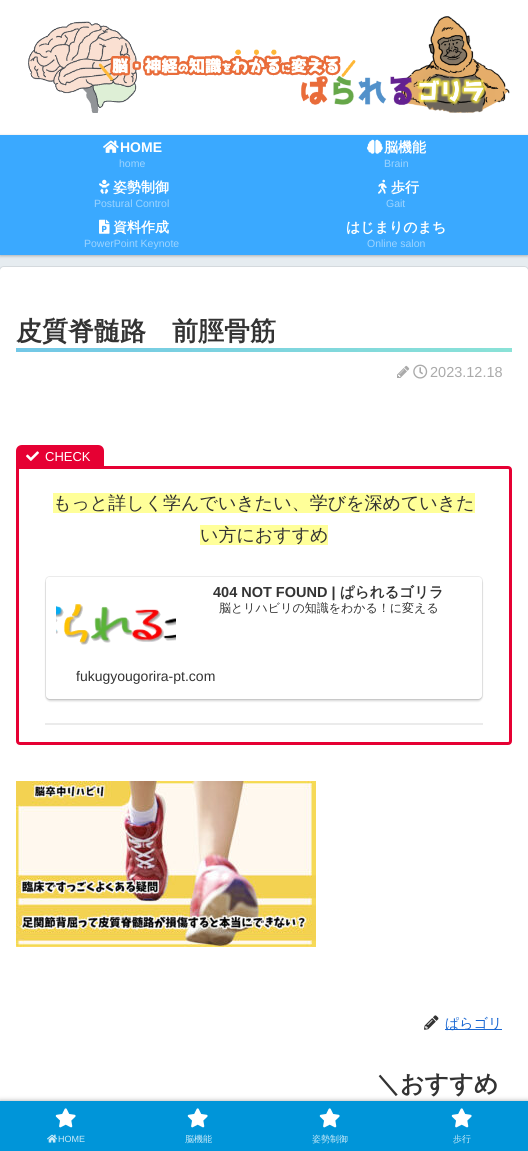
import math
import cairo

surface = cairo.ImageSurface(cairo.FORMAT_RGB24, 528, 1151)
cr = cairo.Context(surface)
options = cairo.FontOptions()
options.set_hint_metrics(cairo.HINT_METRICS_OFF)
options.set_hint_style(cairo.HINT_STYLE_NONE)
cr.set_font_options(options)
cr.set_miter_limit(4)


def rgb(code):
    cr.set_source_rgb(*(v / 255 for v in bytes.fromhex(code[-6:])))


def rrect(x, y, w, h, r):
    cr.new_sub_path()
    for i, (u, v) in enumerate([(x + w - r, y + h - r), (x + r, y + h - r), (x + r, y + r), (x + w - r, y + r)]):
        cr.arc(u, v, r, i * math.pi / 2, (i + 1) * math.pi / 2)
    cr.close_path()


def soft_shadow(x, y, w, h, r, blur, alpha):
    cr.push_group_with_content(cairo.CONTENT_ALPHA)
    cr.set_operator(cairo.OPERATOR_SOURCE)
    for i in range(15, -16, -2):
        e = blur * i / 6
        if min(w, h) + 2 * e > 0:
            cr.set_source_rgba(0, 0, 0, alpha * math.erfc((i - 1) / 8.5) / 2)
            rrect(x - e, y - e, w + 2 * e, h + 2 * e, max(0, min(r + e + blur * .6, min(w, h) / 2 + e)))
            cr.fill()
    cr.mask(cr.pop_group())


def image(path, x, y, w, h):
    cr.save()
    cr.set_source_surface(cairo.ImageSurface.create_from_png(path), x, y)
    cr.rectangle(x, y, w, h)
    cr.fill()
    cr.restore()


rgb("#e6ecf0")
cr.paint()
rgb("#ffffff")
cr.rectangle(0, 0, 528, 135)
cr.fill()
image("img/1.png", 28, 16, 482, 97)
rgb("#000000")
soft_shadow(0, 136, 528, 120, 0, 1.5, 0.25)
rgb("#3aa9ff")
cr.rectangle(0, 135, 528, 120)
cr.fill()
image("img/2.png", 103, 140, 16, 13)
image("img/3.png", 367, 139, 16, 15)
image("img/4.png", 99, 179, 11, 15)
image("img/5.png", 378, 179, 9, 15)
image("img/6.png", 99, 219, 11, 15)
rrect(-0.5, 266.5, 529, 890, 4.5)
rgb("#d4d9dd")
cr.set_line_width(1)
cr.stroke()
rgb("#ffffff")
rrect(0, 267, 528, 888, 4)
cr.fill()
gradient = cairo.LinearGradient(16, 350, 512, 350)
gradient.add_color_stop_rgba(0, 0.447, 0.78, 0.902, 1)
gradient.add_color_stop_rgba(1, 0.541, 0.886, 0.843, 1)
cr.set_source(gradient)
cr.rectangle(16, 348, 496, 4)
cr.fill()
image("img/7.png", 397, 365, 13, 13)
image("img/8.png", 413, 364, 15, 15)
cr.new_path()
cr.move_to(17.5, 467.5)
cr.line_to(508, 467.5)
cr.curve_to(509.5, 467.5, 510.5, 468.5, 510.5, 470)
cr.line_to(510.5, 741)
cr.curve_to(510.5, 742.5, 509.5, 743.5, 508, 743.5)
cr.line_to(20, 743.5)
cr.curve_to(18.5, 743.5, 17.5, 742.5, 17.5, 741)
cr.close_path()
rgb("#e60033")
cr.set_line_width(3)
cr.stroke()
cr.new_path()
cr.move_to(22, 445)
cr.line_to(98, 445)
cr.curve_to(101.5, 445, 104, 447.5, 104, 451)
cr.line_to(104, 469)
cr.line_to(16, 469)
cr.line_to(16, 451)
cr.curve_to(16, 447.5, 18.5, 445, 22, 445)
cr.close_path()
cr.fill()
image("img/9.png", 26, 451, 13, 10)
rgb("#ffff99")
cr.rectangle(53, 493, 422, 20)
cr.fill()
cr.rectangle(200, 525, 128, 20)
cr.fill()
rrect(45.5, 576.5, 437, 123, 4.5)
rgb("#ebebeb")
cr.set_line_width(1)
cr.stroke()
rgb("#000000")
soft_shadow(46, 579, 436, 122, 4, 1, 0.16)
rgb("#ffffff")
rrect(46, 577, 436, 122, 4)
cr.fill()
image("img/10.png", 56, 604, 120, 41)
rgb("#ebebeb")
cr.rectangle(45, 723, 438, 2)
cr.fill()
image("img/11.png", 16, 781, 300, 166)
image("img/12.png", 424, 1015, 15, 15)
rgb("#1967d2")
cr.rectangle(445, 1029, 57, 1)
cr.fill()
rgb("#a9a9a9")
soft_shadow(0, 1101, 528, 50, 0, 2.5, 1)
rgb("#0095d9")
cr.rectangle(0, 1101, 528, 50)
cr.fill()
image("img/13.png", 55, 1108, 21, 20)
image("img/14.png", 47, 1134, 11, 9)
image("img/13.png", 187, 1108, 21, 20)
image("img/13.png", 319, 1108, 21, 20)
image("img/13.png", 451, 1108, 21, 20)
cr.select_font_face("Liberation Sans", cairo.FONT_SLANT_NORMAL, cairo.FONT_WEIGHT_BOLD)
cr.set_font_size(14)
rgb("#ffffff")
cr.move_to(120, 152)
cr.show_text("HOME")
cr.select_font_face("Liberation Sans")
cr.set_font_size(10.5)
rgb("#9dd4ff")
cr.move_to(119, 167)
cr.show_text("home")
cr.select_font_face("WenQuanYi Zen Hei", cairo.FONT_SLANT_NORMAL, cairo.FONT_WEIGHT_BOLD)
cr.set_font_size(14)
rgb("#ffffff")
cr.move_to(384, 152)
cr.show_text("脳機能")
cr.select_font_face("Liberation Sans")
cr.set_font_size(10.5)
rgb("#9dd4ff")
cr.move_to(384, 167)
cr.show_text("Brain")
cr.select_font_face("WenQuanYi Zen Hei", cairo.FONT_SLANT_NORMAL, cairo.FONT_WEIGHT_BOLD)
cr.set_font_size(14)
rgb("#ffffff")
cr.move_to(113, 192)
cr.show_text("姿勢制御")
cr.select_font_face("Liberation Sans")
cr.set_font_size(10.5)
rgb("#9dd4ff")
cr.move_to(94, 207)
cr.show_text("Postural Control")
cr.select_font_face("WenQuanYi Zen Hei", cairo.FONT_SLANT_NORMAL, cairo.FONT_WEIGHT_BOLD)
cr.set_font_size(14)
rgb("#ffffff")
cr.move_to(391, 192)
cr.show_text("歩行")
cr.select_font_face("Liberation Sans")
cr.set_font_size(10.5)
rgb("#9dd4ff")
cr.move_to(386, 207)
cr.show_text("Gait")
cr.select_font_face("WenQuanYi Zen Hei", cairo.FONT_SLANT_NORMAL, cairo.FONT_WEIGHT_BOLD)
cr.set_font_size(14)
rgb("#ffffff")
cr.move_to(113, 232)
cr.show_text("資料作成")
cr.select_font_face("Liberation Sans")
cr.set_font_size(10.5)
rgb("#9dd4ff")
cr.move_to(84, 247)
cr.show_text("PowerPoint Keynote")
cr.select_font_face("WenQuanYi Zen Hei", cairo.FONT_SLANT_NORMAL, cairo.FONT_WEIGHT_BOLD)
cr.set_font_size(14)
rgb("#ffffff")
cr.move_to(346, 232)
cr.show_text("はじまりのまち")
cr.select_font_face("Liberation Sans")
cr.set_font_size(10.5)
rgb("#9dd4ff")
cr.move_to(367, 247)
cr.show_text("Online salon")
cr.select_font_face("WenQuanYi Zen Hei", cairo.FONT_SLANT_NORMAL, cairo.FONT_WEIGHT_BOLD)
cr.set_font_size(26)
rgb("#333333")
cr.move_to(16, 340)
cr.show_text("皮質脊髄路　前脛骨筋")
cr.select_font_face("Liberation Sans")
cr.set_font_size(14.5)
rgb("#aaaaaa")
cr.move_to(430, 377)
cr.show_text("2023.12.18")
cr.set_font_size(13)
rgb("#ffffff")
cr.move_to(45, 461)
cr.show_text("CHECK")
cr.select_font_face("WenQuanYi Zen Hei Medium")
cr.set_font_size(18)
rgb("#333333")
cr.move_to(53, 509)
cr.show_text("もっと詳しく学んでいきたい、学びを深めていきた")
cr.move_to(200, 541)
cr.show_text("い方におすすめ")
cr.select_font_face("Liberation Sans", cairo.FONT_SLANT_NORMAL, cairo.FONT_WEIGHT_BOLD)
cr.set_font_size(14.5)
cr.move_to(213, 597)
cr.show_text("404 NOT FOUND |")
cr.select_font_face("WenQuanYi Zen Hei", cairo.FONT_SLANT_NORMAL, cairo.FONT_WEIGHT_BOLD)
cr.move_to(340, 597)
cr.show_text("ぱられるゴリラ")
cr.select_font_face("WenQuanYi Zen Hei Medium")
cr.set_font_size(12)
cr.move_to(219, 612)
cr.show_text("脳とリハビリの知識をわかる！に変える")
cr.select_font_face("Liberation Sans")
cr.set_font_size(14)
cr.move_to(76, 681)
cr.show_text("fukugyougorira-pt.com")
cr.select_font_face("WenQuanYi Zen Hei Medium")
rgb("#1967d2")
cr.move_to(445, 1028)
cr.show_text("ぱらゴリ")
cr.select_font_face("WenQuanYi Zen Hei", cairo.FONT_SLANT_NORMAL, cairo.FONT_WEIGHT_BOLD)
cr.set_font_size(24)
rgb("#333333")
cr.move_to(376, 1092)
cr.show_text("＼おすすめ")
cr.select_font_face("Liberation Sans")
cr.set_font_size(9)
rgb("#cceaf7")
cr.move_to(58, 1142)
cr.show_text("HOME")
cr.select_font_face("WenQuanYi Zen Hei Medium")
for x, y, s in [
    (185, 1142, "脳機能"),
    (312, 1142, "姿勢制御"),
    (453, 1142, "歩行"),
]:
    cr.move_to(x, y)
    cr.show_text(s)
surface.write_to_png("page.png")
